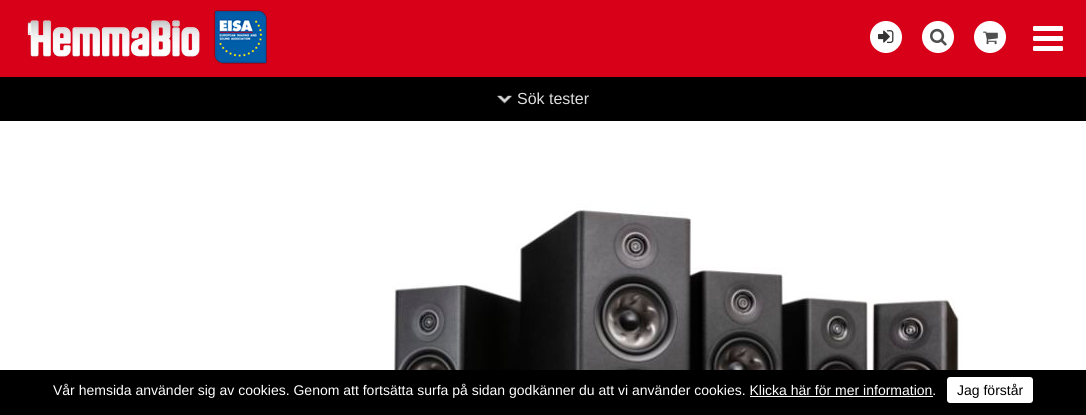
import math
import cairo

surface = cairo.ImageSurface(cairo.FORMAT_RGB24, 1086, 415)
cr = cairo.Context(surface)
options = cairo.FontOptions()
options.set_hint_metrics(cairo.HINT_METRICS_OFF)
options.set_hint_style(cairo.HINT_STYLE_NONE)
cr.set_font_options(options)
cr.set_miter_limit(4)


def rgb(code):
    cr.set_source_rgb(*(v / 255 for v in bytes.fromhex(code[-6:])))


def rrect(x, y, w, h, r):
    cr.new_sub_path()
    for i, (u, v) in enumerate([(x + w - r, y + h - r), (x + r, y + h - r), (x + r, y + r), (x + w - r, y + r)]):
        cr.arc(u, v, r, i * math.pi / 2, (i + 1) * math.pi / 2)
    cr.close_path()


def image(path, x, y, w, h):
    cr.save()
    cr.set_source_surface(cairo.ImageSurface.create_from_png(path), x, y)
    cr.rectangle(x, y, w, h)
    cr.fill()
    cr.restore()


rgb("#ffffff")
cr.paint()
rgb("#d80019")
cr.rectangle(0, 0, 1086, 77)
cr.fill()
image("img/1.png", 27, 20, 173, 37)
image("img/2.png", 213, 10, 54, 54)
rgb("#ffffff")
cr.arc(886, 37, 16, 0, 2 * math.pi)
cr.fill()
image("img/3.png", 878, 30, 16, 13)
cr.arc(938, 37, 16, 0, 2 * math.pi)
cr.fill()
image("img/4.png", 930, 28, 17, 18)
cr.arc(990, 37, 16, 0, 2 * math.pi)
cr.fill()
image("img/5.png", 983, 31, 15, 14)
image("img/6.png", 1033, 26, 30, 25)
rgb("#000000")
cr.rectangle(0, 77, 1086, 44)
cr.fill()
image("img/7.png", 497, 95, 15, 9)
image("img/8.png", 392, 203, 571, 167)
cr.rectangle(0, 370, 1086, 45)
cr.fill()
rgb("#ffffff")
cr.rectangle(750, 396, 183, 1)
cr.fill()
rrect(947, 377, 86, 26, 3)
cr.fill()
cr.select_font_face("Liberation Sans")
cr.set_font_size(16)
rgb("#dddddd")
cr.move_to(517, 104)
cr.show_text("Sök tester")
cr.set_font_size(14)
rgb("#ffffff")
cr.move_to(53, 395)
cr.show_text("Vår hemsida använder sig av cookies. Genom att fortsätta surfa på sidan godkänner du att vi använder cookies. Klicka här för mer information.")
rgb("#000000")
cr.move_to(957, 395)
cr.show_text("Jag förstår")
surface.write_to_png("page.png")
